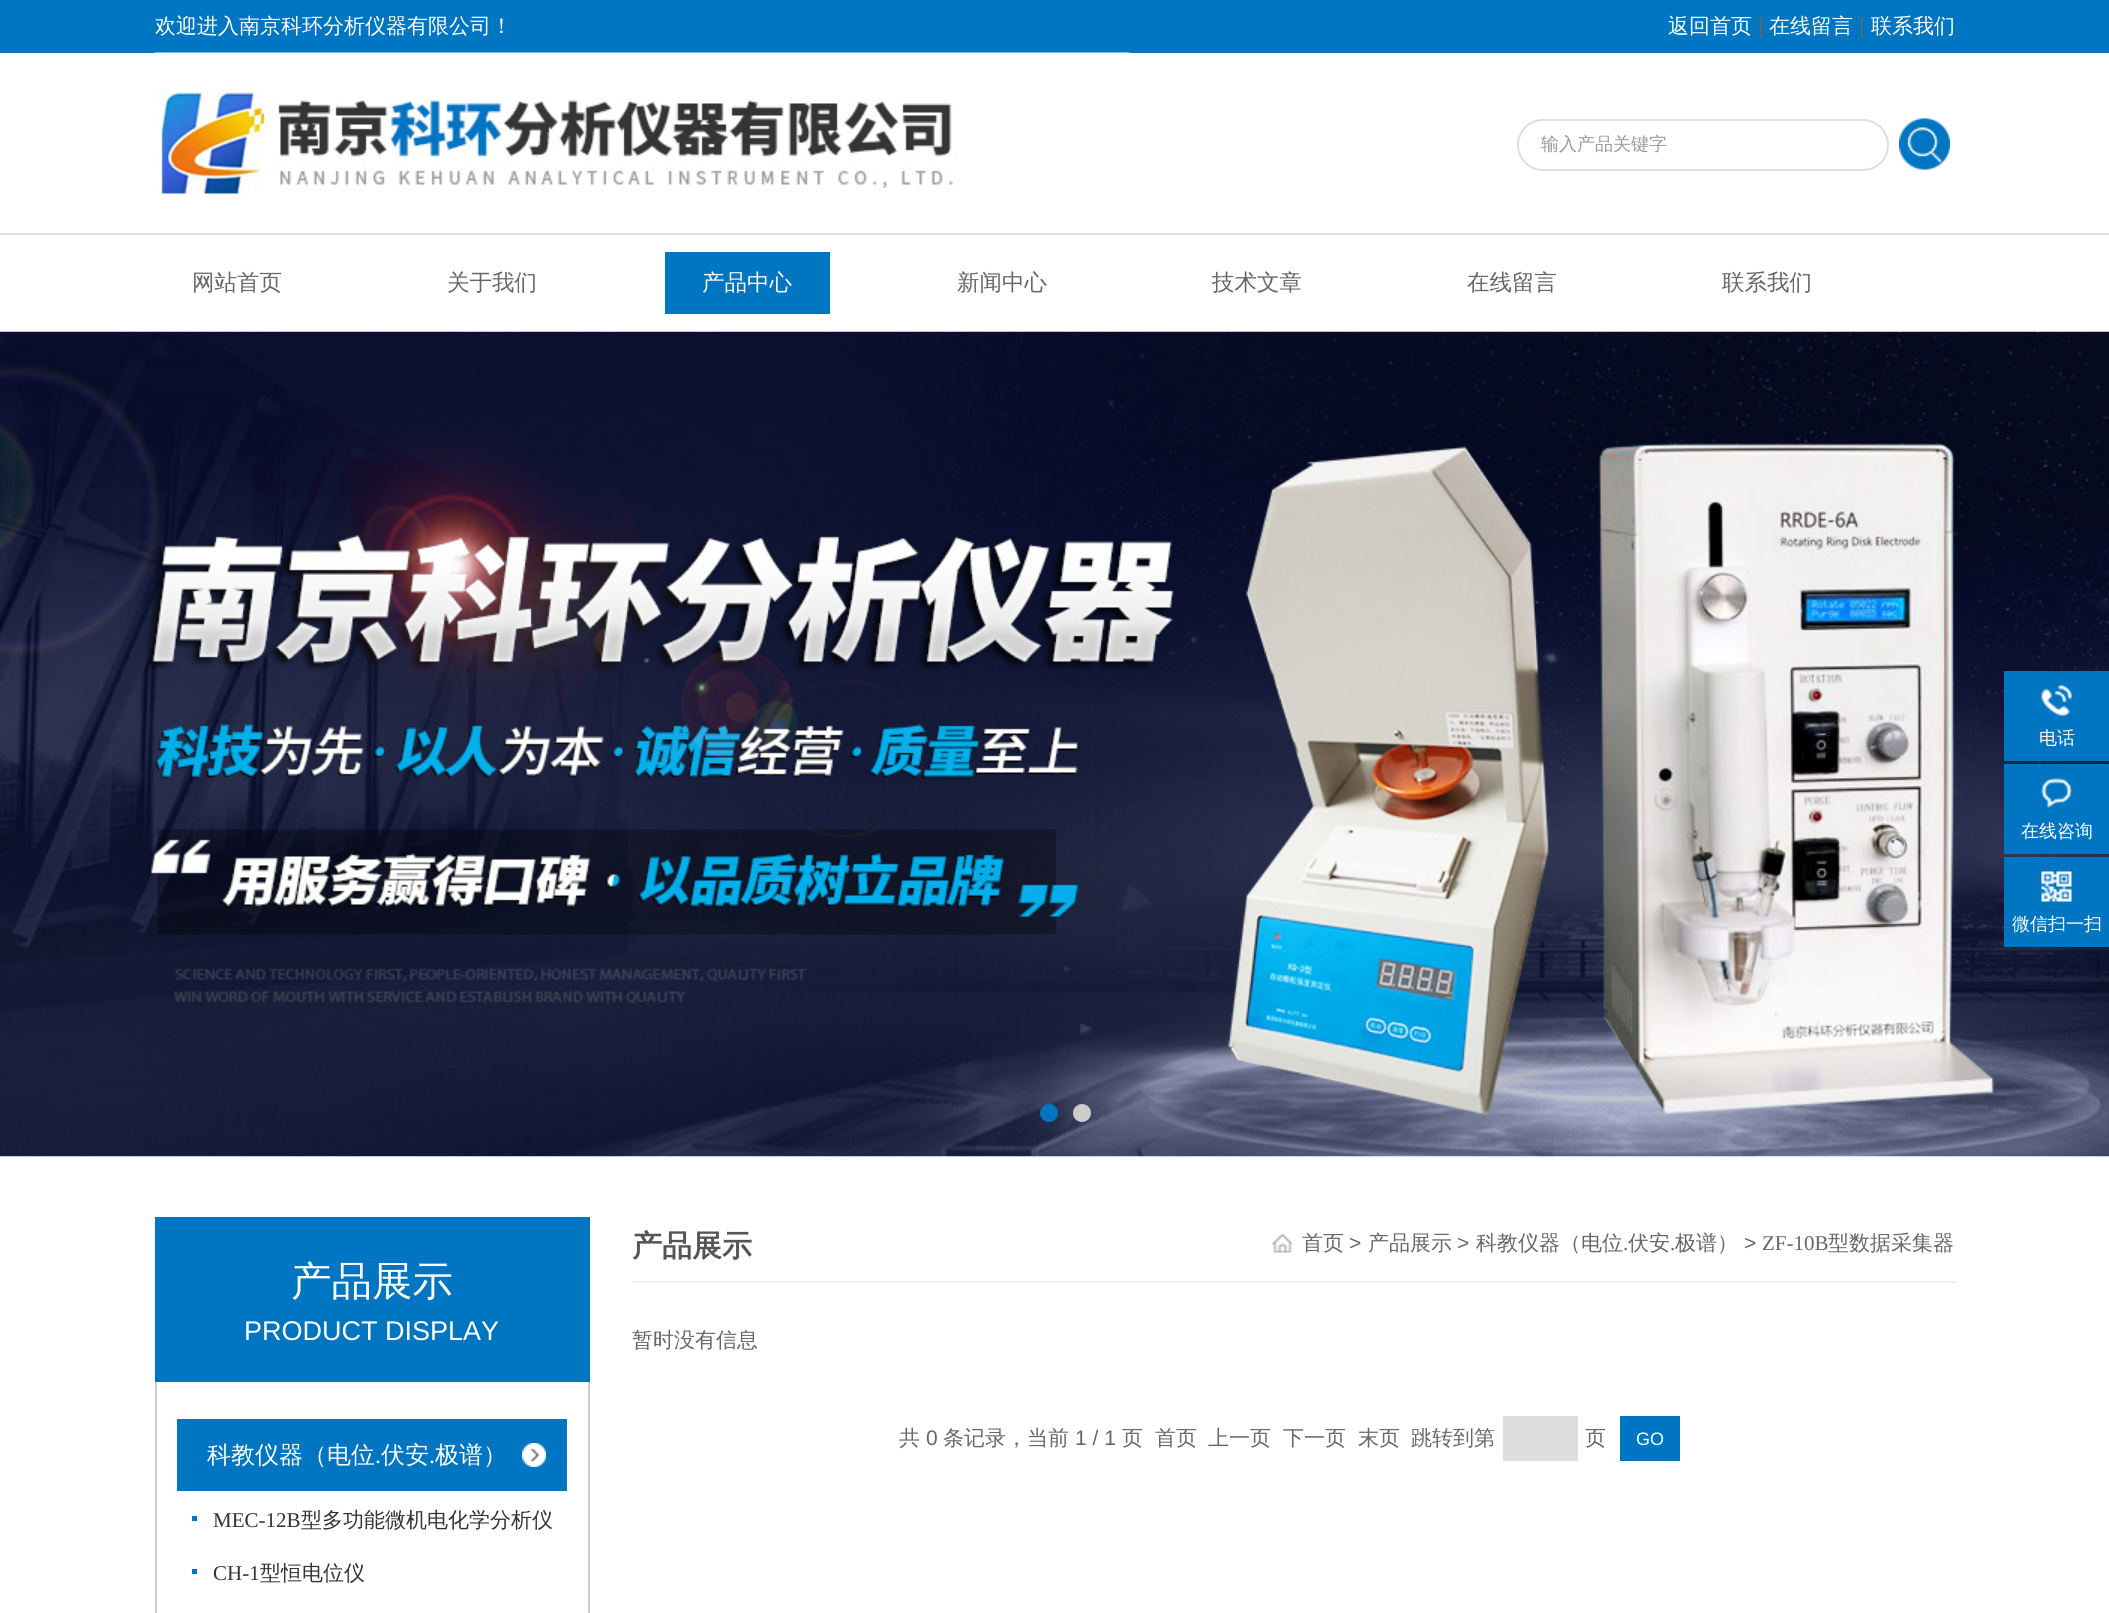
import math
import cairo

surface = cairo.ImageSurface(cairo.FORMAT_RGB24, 2109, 1613)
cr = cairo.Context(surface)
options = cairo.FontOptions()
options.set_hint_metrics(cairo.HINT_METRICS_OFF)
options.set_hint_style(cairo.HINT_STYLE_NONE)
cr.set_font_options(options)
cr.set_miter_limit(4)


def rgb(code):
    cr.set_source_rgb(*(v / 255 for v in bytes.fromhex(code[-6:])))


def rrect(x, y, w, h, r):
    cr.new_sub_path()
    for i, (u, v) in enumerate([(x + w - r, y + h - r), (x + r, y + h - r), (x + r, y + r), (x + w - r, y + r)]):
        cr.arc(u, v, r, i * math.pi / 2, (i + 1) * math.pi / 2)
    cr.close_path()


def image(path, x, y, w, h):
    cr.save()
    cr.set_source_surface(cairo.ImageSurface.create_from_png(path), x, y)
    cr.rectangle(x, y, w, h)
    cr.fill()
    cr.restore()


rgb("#ffffff")
cr.paint()
rgb("#0075c1")
cr.rectangle(0, 0, 2109, 53)
cr.fill()
image("img/1.png", 154, 52, 976, 142)
rrect(1518, 120, 370, 50, 25)
rgb("#dedede")
cr.stroke()
image("img/2.png", 1899, 118, 51, 52)
rgb("#dddddd")
cr.rectangle(0, 233, 2109, 2)
cr.fill()
rgb("#0075c1")
cr.rectangle(665, 252, 165, 62)
cr.fill()
image("img/3.png", 0, 331, 2109, 826)
cr.arc(1049, 1113, 9, 0, 2 * math.pi)
cr.fill()
rgb("#cccccc")
cr.arc(1082, 1113, 9, 0, 2 * math.pi)
cr.fill()
rgb("#0075c1")
cr.rectangle(2004, 671, 105, 90)
cr.fill()
image("img/4.png", 2041, 685, 31, 31)
cr.rectangle(2004, 764, 105, 90)
cr.fill()
image("img/5.png", 2041, 778, 31, 31)
cr.rectangle(2004, 857, 105, 90)
cr.fill()
image("img/6.png", 2041, 871, 31, 31)
for x, y, w, h, color in [
    (155, 1217, 435, 165, "#0075c1"),
    (588, 1382, 2, 231, "#cccccc"),
    (155, 1382, 2, 231, "#cccccc"),
    (177, 1419, 390, 72, "#0075c1"),
]:
    rgb(color)
    cr.rectangle(x, y, w, h)
    cr.fill()
image("img/7.png", 522, 1443, 24, 24)
for x, y, w, h, color in [
    (192, 1516, 5, 5, "#0075c1"),
    (192, 1569, 5, 5, "#0075c1"),
    (632, 1281, 1323, 2, "#efefef"),
]:
    rgb(color)
    cr.rectangle(x, y, w, h)
    cr.fill()
image("img/8.png", 1272, 1234, 20, 19)
rgb("#dddddd")
cr.rectangle(1503, 1416, 75, 45)
cr.fill()
rgb("#0075c1")
cr.rectangle(1620, 1416, 60, 45)
cr.fill()
cr.select_font_face("WenQuanYi Zen Hei Medium")
cr.set_font_size(21)
rgb("#ffffff")
cr.move_to(155, 33)
cr.show_text("欢迎进入南京科环分析仪器有限公司！")
cr.move_to(1668, 33)
cr.show_text("返回首页")
cr.select_font_face("Liberation Sans")
rgb("#666666")
cr.move_to(1758, 33)
cr.show_text("|")
cr.select_font_face("WenQuanYi Zen Hei Medium")
rgb("#ffffff")
cr.move_to(1769, 33)
cr.show_text("在线留言")
cr.select_font_face("Liberation Sans")
rgb("#666666")
cr.move_to(1859, 33)
cr.show_text("|")
cr.select_font_face("WenQuanYi Zen Hei Medium")
rgb("#ffffff")
cr.move_to(1871, 33)
cr.show_text("联系我们")
cr.set_font_size(18)
rgb("#999999")
cr.move_to(1541, 150)
cr.show_text("输入产品关键字")
cr.set_font_size(22.5)
rgb("#666666")
cr.move_to(192, 290)
cr.show_text("网站首页")
cr.move_to(447, 290)
cr.show_text("关于我们")
rgb("#ffffff")
cr.move_to(702, 290)
cr.show_text("产品中心")
rgb("#666666")
for x, y, s in [
    (957, 290, "新闻中心"),
    (1212, 290, "技术文章"),
    (1467, 290, "在线留言"),
    (1722, 290, "联系我们"),
]:
    cr.move_to(x, y)
    cr.show_text(s)
cr.set_font_size(18)
rgb("#ffffff")
for x, y, s in [
    (2039, 744, "电话"),
    (2021, 837, "在线咨询"),
    (2012, 930, "微信扫一扫"),
]:
    cr.move_to(x, y)
    cr.show_text(s)
cr.set_font_size(40.5)
cr.move_to(291, 1295)
cr.show_text("产品展示")
cr.select_font_face("Liberation Sans")
cr.set_font_size(27)
cr.move_to(244, 1340)
cr.show_text("PRODUCT DISPLAY")
cr.select_font_face("WenQuanYi Zen Hei Medium")
cr.set_font_size(24)
cr.move_to(207, 1463)
cr.show_text("科教仪器（电位")
cr.select_font_face("Liberation Serif")
cr.move_to(375, 1463)
cr.show_text(".")
cr.select_font_face("WenQuanYi Zen Hei Medium")
cr.move_to(381, 1463)
cr.show_text("伏安")
cr.select_font_face("Liberation Serif")
cr.move_to(429, 1463)
cr.show_text(".")
cr.select_font_face("WenQuanYi Zen Hei Medium")
cr.move_to(435, 1463)
cr.show_text("极谱）")
cr.select_font_face("Liberation Serif")
cr.set_font_size(21)
rgb("#333333")
cr.move_to(213, 1527)
cr.show_text("MEC-12B")
cr.select_font_face("WenQuanYi Zen Hei Medium")
cr.move_to(301, 1527)
cr.show_text("型多功能微机电化学分析仪")
cr.select_font_face("Liberation Serif")
cr.move_to(213, 1580)
cr.show_text("CH-1")
cr.select_font_face("WenQuanYi Zen Hei Medium")
cr.move_to(260, 1580)
cr.show_text("型恒电位仪")
cr.select_font_face("WenQuanYi Zen Hei", cairo.FONT_SLANT_NORMAL, cairo.FONT_WEIGHT_BOLD)
cr.set_font_size(30)
rgb("#555555")
cr.move_to(632, 1256)
cr.show_text("产品展示")
cr.select_font_face("WenQuanYi Zen Hei Medium")
cr.set_font_size(21)
rgb("#666666")
cr.move_to(1302, 1250)
cr.show_text("首页")
cr.select_font_face("Liberation Sans")
cr.move_to(1349, 1250)
cr.show_text(">")
cr.select_font_face("WenQuanYi Zen Hei Medium")
cr.move_to(1368, 1250)
cr.show_text("产品展示")
cr.select_font_face("Liberation Sans")
cr.move_to(1457, 1250)
cr.show_text(">")
cr.select_font_face("WenQuanYi Zen Hei Medium")
cr.move_to(1476, 1250)
cr.show_text("科教仪器（电位")
cr.select_font_face("Liberation Serif")
cr.move_to(1623, 1250)
cr.show_text(".")
cr.select_font_face("WenQuanYi Zen Hei Medium")
cr.move_to(1628, 1250)
cr.show_text("伏安")
cr.select_font_face("Liberation Serif")
cr.move_to(1670, 1250)
cr.show_text(".")
cr.select_font_face("WenQuanYi Zen Hei Medium")
cr.move_to(1675, 1250)
cr.show_text("极谱）")
cr.select_font_face("Liberation Sans")
cr.move_to(1744, 1250)
cr.show_text(">")
cr.select_font_face("Liberation Serif")
cr.move_to(1762, 1250)
cr.show_text("ZF-10B")
cr.select_font_face("WenQuanYi Zen Hei Medium")
for x, y, s in [
    (1828, 1250, "型数据采集器"),
    (632, 1347, "暂时没有信息"),
    (899, 1445, "共"),
]:
    cr.move_to(x, y)
    cr.show_text(s)
cr.select_font_face("Liberation Sans")
cr.move_to(926, 1445)
cr.show_text("0")
cr.select_font_face("WenQuanYi Zen Hei Medium")
cr.move_to(943, 1445)
cr.show_text("条记录，当前")
cr.select_font_face("Liberation Sans")
cr.move_to(1075, 1445)
cr.show_text("1 / 1")
cr.select_font_face("WenQuanYi Zen Hei Medium")
for x, y, s in [
    (1122, 1445, "页"),
    (1155, 1445, "首页"),
    (1208, 1445, "上一页"),
    (1283, 1445, "下一页"),
    (1358, 1445, "末页"),
    (1411, 1445, "跳转到第"),
    (1585, 1445, "页"),
]:
    cr.move_to(x, y)
    cr.show_text(s)
cr.select_font_face("Liberation Sans")
cr.set_font_size(18)
rgb("#ffffff")
cr.move_to(1636, 1445)
cr.show_text("GO")
surface.write_to_png("page.png")
